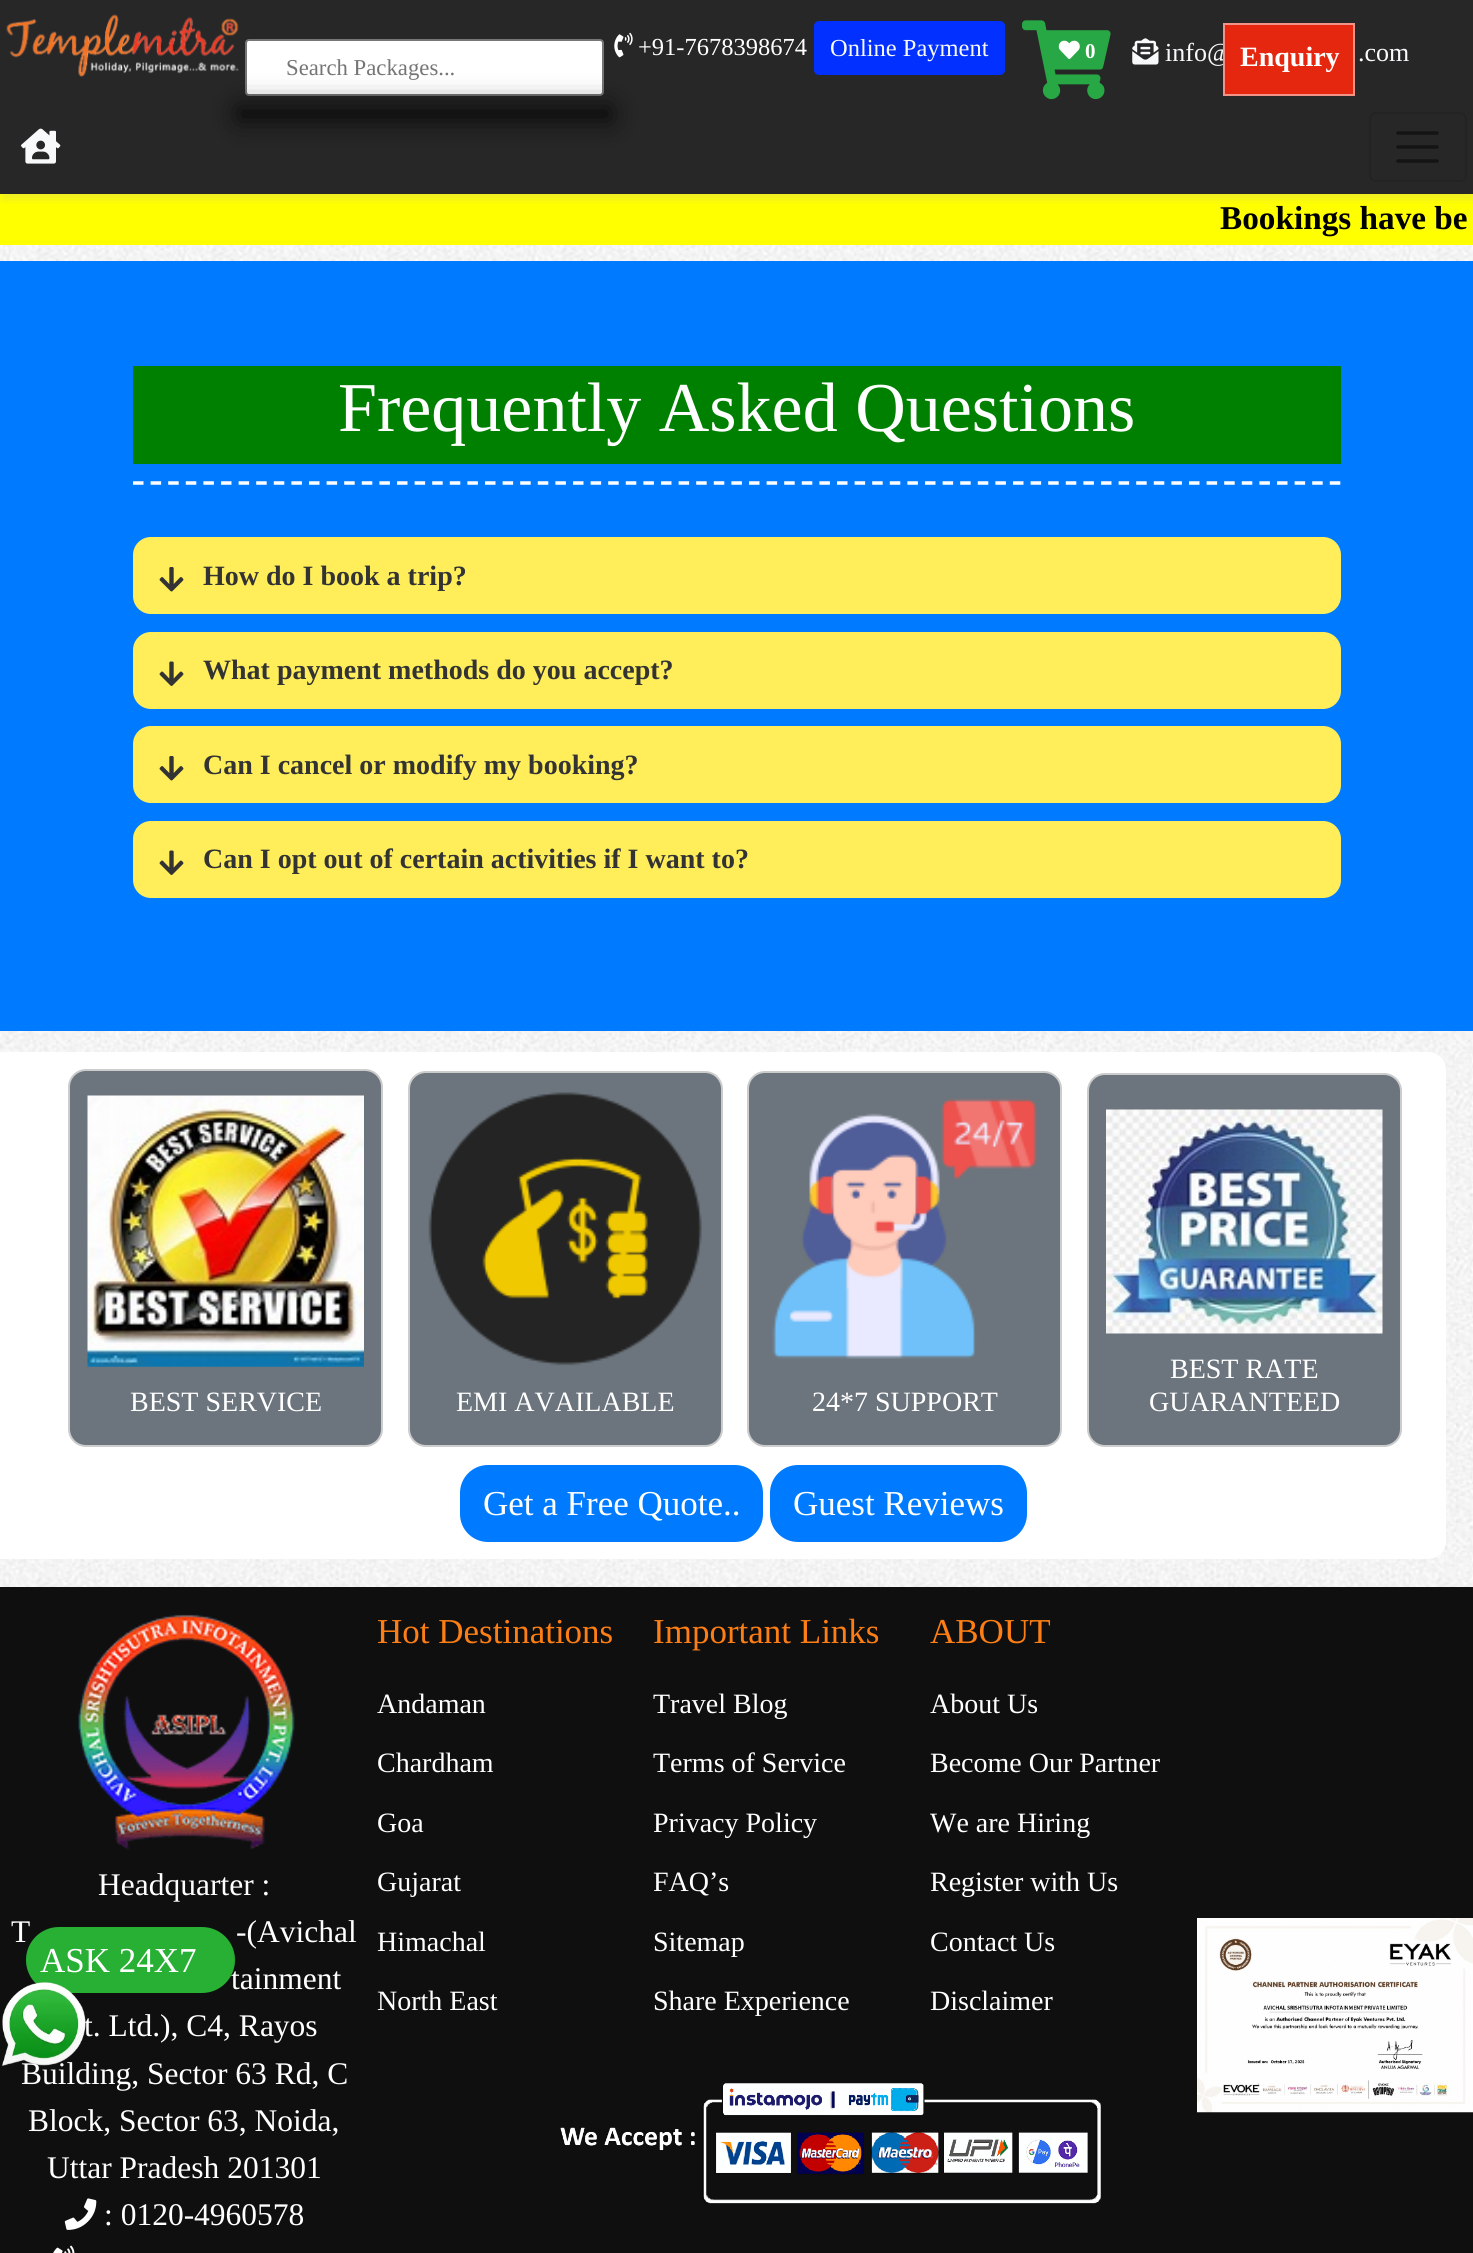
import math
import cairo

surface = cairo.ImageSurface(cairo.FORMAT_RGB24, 1473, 2253)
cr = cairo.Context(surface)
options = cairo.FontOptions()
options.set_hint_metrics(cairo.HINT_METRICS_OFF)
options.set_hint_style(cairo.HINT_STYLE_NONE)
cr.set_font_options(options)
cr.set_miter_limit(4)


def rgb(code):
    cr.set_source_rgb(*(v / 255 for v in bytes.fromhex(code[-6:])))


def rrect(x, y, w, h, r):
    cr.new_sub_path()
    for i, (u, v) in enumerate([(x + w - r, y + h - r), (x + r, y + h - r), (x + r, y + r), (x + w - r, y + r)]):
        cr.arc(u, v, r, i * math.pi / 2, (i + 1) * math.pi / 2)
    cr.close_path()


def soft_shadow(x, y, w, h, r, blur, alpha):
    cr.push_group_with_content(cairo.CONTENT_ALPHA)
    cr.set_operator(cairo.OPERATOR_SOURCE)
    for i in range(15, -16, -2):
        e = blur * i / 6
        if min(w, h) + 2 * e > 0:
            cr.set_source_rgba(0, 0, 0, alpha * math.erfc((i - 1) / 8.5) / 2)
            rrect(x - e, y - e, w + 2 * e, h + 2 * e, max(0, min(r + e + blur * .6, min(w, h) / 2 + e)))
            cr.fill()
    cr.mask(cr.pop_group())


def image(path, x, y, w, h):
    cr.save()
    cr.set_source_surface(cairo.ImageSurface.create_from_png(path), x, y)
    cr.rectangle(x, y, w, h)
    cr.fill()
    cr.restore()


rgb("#ffffff")
cr.paint()
image("img/1.png", 0, 245, 1473, 1342)
rgb("#272727")
cr.rectangle(0, 0, 1473, 194)
cr.fill()
image("img/2.png", 6, 14, 233, 63)
rgb("#ffffff")
rrect(246, 40, 357, 55, 3)
cr.fill_preserve()
rgb("#767676")
cr.stroke()
rgb("#000000")
soft_shadow(243, 112, 363, 4, 0, 15, 1)
image("img/3.png", 614, 32, 19, 26)
rgb("#0130ff")
rrect(814, 21, 191, 54, 5)
cr.fill()
image("img/4.png", 1022, 20, 89, 80)
rgb("#27a745")
rrect(1050, 35, 54, 32, 7)
cr.fill()
image("img/5.png", 1058, 40, 22, 19)
image("img/6.png", 1132, 38, 27, 27)
rgb("#ffff00")
cr.rectangle(0, 194, 1473, 51)
cr.fill()
rgb("#007bff")
cr.rectangle(0, 261, 1473, 770)
cr.fill()
cr.new_path()
cr.move_to(133, 483)
cr.line_to(1340.5, 483)
rgb("#ffffff")
cr.set_line_width(3.5)
cr.set_dash([10.5, 7.1])
cr.stroke()
rgb("#008000")
cr.rectangle(133, 366, 1208, 98)
cr.fill()
rgb("#ffee5a")
rrect(133, 537, 1208, 77, 18)
cr.fill()
image("img/8.png", 159, 567, 25, 25)
rrect(133, 632, 1208, 77, 18)
cr.fill()
image("img/9.png", 159, 661, 25, 25)
rrect(133, 726, 1208, 77, 18)
cr.fill()
image("img/8.png", 159, 756, 25, 25)
rrect(133, 821, 1208, 77, 18)
cr.fill()
image("img/9.png", 159, 850, 25, 25)
rgb("#ffffff")
rrect(-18, 1052, 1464, 507, 18)
cr.fill()
rgb("#6c757d")
rrect(69, 1070, 313, 376, 17)
cr.fill_preserve()
rgb("#cccccc")
cr.set_line_width(2)
cr.set_dash([])
cr.stroke()
image("img/10.png", 87, 1095, 277, 272)
rgb("#6c757d")
rrect(409, 1072, 313, 374, 17)
cr.fill_preserve()
rgb("#cccccc")
cr.stroke()
image("img/11.png", 428, 1092, 274, 274)
rgb("#6c757d")
rrect(748, 1072, 313, 374, 17)
cr.fill_preserve()
rgb("#cccccc")
cr.stroke()
image("img/12.png", 772, 1098, 265, 261)
rgb("#6c757d")
rrect(1088, 1074, 313, 372, 17)
cr.fill_preserve()
rgb("#cccccc")
cr.stroke()
image("img/13.png", 1106, 1109, 277, 225)
rgb("#007bff")
rrect(461, 1466, 301, 75, 27)
cr.fill_preserve()
cr.stroke()
rrect(771, 1466, 255, 75, 27)
cr.fill_preserve()
cr.stroke()
rgb("#0f0f0f")
cr.rectangle(0, 1587, 1473, 666)
cr.fill()
image("img/14.png", 78, 1614, 217, 236)
image("img/15.png", 64, 2198, 33, 32)
image("img/16.png", 53, 2245, 22, 8)
image("img/17.png", 1197, 1918, 276, 195)
image("img/18.png", 560, 2083, 541, 121)
cr.select_font_face("Liberation Serif")
cr.set_font_size(22.75)
rgb("#757575")
cr.move_to(286, 75)
cr.show_text("Search Packages...")
cr.set_font_size(24.5)
rgb("#ffffff")
cr.move_to(638, 55)
cr.show_text("+91-7678398674")
rgb("#f8f9fa")
cr.move_to(830, 56)
cr.show_text("Online Payment")
cr.select_font_face("Liberation Serif", cairo.FONT_SLANT_NORMAL, cairo.FONT_WEIGHT_BOLD)
cr.set_font_size(21)
rgb("#ffffff")
cr.move_to(1085, 58)
cr.show_text("0")
cr.select_font_face("Liberation Serif")
cr.set_font_size(26)
rgb("#f8f9fa")
cr.move_to(1165, 61)
cr.show_text("info@")
cr.move_to(1358, 61)
cr.show_text(".com")
rgb("#e4270e")
cr.rectangle(1224, 24, 130, 71)
cr.fill_preserve()
rgb("#f29387")
cr.stroke()
cr.select_font_face("Liberation Serif", cairo.FONT_SLANT_NORMAL, cairo.FONT_WEIGHT_BOLD)
cr.set_font_size(28)
rgb("#ffffff")
cr.move_to(1240, 66)
cr.show_text("Enquiry")
cr.save()
cr.rectangle(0, 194, 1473, 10)
cr.clip()
rgb("#adadad")
soft_shadow(2, 105, 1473, 95, 0, 3.5, 0.2)
cr.restore()
image("img/7.png", 21, 128, 40, 36)
rrect(1370, 113, 96, 68, 6)
rgb("#232323")
cr.stroke()
cr.new_path()
cr.move_to(1398, 133)
cr.line_to(1437, 133)
cr.move_to(1398, 147)
cr.line_to(1437, 147)
cr.move_to(1398, 161)
cr.line_to(1437, 161)
rgb("#141414")
cr.set_line_width(3.5)
cr.set_line_cap(cairo.LINE_CAP_ROUND)
cr.stroke()
cr.set_font_size(33.25)
rgb("#000000")
cr.move_to(1220, 229)
cr.show_text("Bookings have be")
cr.select_font_face("Liberation Serif")
cr.set_font_size(70)
rgb("#ffffff")
cr.move_to(338, 431)
cr.show_text("Frequently Asked Questions")
cr.select_font_face("Liberation Serif", cairo.FONT_SLANT_NORMAL, cairo.FONT_WEIGHT_BOLD)
cr.set_font_size(28)
rgb("#333333")
for x, y, s in [
    (203, 585, "How do I book a trip?"),
    (203, 679, "What payment methods do you accept?"),
    (203, 774, "Can I cancel or modify my booking?"),
    (203, 868, "Can I opt out of certain activities if I want to?"),
]:
    cr.move_to(x, y)
    cr.show_text(s)
cr.select_font_face("Liberation Serif")
rgb("#ffffff")
for x, y, s in [
    (130, 1411, "BEST SERVICE"),
    (456, 1411, "EMI AVAILABLE"),
    (812, 1411, "24*7 SUPPORT"),
    (1170, 1378, "BEST RATE"),
    (1149, 1411, "GUARANTEED"),
]:
    cr.move_to(x, y)
    cr.show_text(s)
cr.set_font_size(35)
cr.move_to(483, 1515)
cr.show_text("Get a Free Quote..")
cr.move_to(793, 1515)
cr.show_text("Guest Reviews")
cr.set_font_size(31.5)
for x, y, s in [
    (98, 1895, "Headquarter :"),
    (11, 1942, "T"),
    (236, 1942, "-(Avichal"),
    (231, 1989, "tainment"),
    (84, 2036, "t. Ltd.), C4, Rayos"),
    (21, 2084, "Building, Sector 63 Rd, C"),
    (28, 2131, "Block, Sector 63, Noida,"),
    (47, 2178, "Uttar Pradesh 201301"),
    (104, 2225, ": 0120-4960578"),
]:
    cr.move_to(x, y)
    cr.show_text(s)
cr.set_font_size(35)
rgb("#fd7e14")
cr.move_to(377, 1643)
cr.show_text("Hot Destinations")
cr.set_font_size(28)
rgb("#ffffff")
for x, y, s in [
    (377, 1713, "Andaman"),
    (377, 1772, "Chardham"),
    (377, 1832, "Goa"),
    (377, 1891, "Gujarat"),
    (377, 1951, "Himachal"),
    (377, 2010, "North East"),
]:
    cr.move_to(x, y)
    cr.show_text(s)
cr.set_font_size(35)
rgb("#fd7e14")
cr.move_to(653, 1643)
cr.show_text("Important Links")
cr.set_font_size(28)
rgb("#ffffff")
for x, y, s in [
    (653, 1713, "Travel Blog"),
    (653, 1772, "Terms of Service"),
    (653, 1832, "Privacy Policy"),
    (653, 1891, "FAQ’s"),
    (653, 1951, "Sitemap"),
    (653, 2010, "Share Experience"),
]:
    cr.move_to(x, y)
    cr.show_text(s)
cr.set_font_size(35)
rgb("#fd7e14")
cr.move_to(930, 1643)
cr.show_text("ABOUT")
cr.set_font_size(28)
rgb("#ffffff")
for x, y, s in [
    (930, 1713, "About Us"),
    (930, 1772, "Become Our Partner"),
    (930, 1832, "We are Hiring"),
    (930, 1891, "Register with Us"),
    (930, 1951, "Contact Us"),
    (930, 2010, "Disclaimer"),
]:
    cr.move_to(x, y)
    cr.show_text(s)
rgb("#27b033")
rrect(26, 1927, 209, 66, 33)
cr.fill()
cr.set_font_size(35)
rgb("#ffffff")
cr.move_to(40, 1972)
cr.show_text("ASK 24X7")
image("img/19.png", 2, 1982, 84, 84)
surface.write_to_png("page.png")
